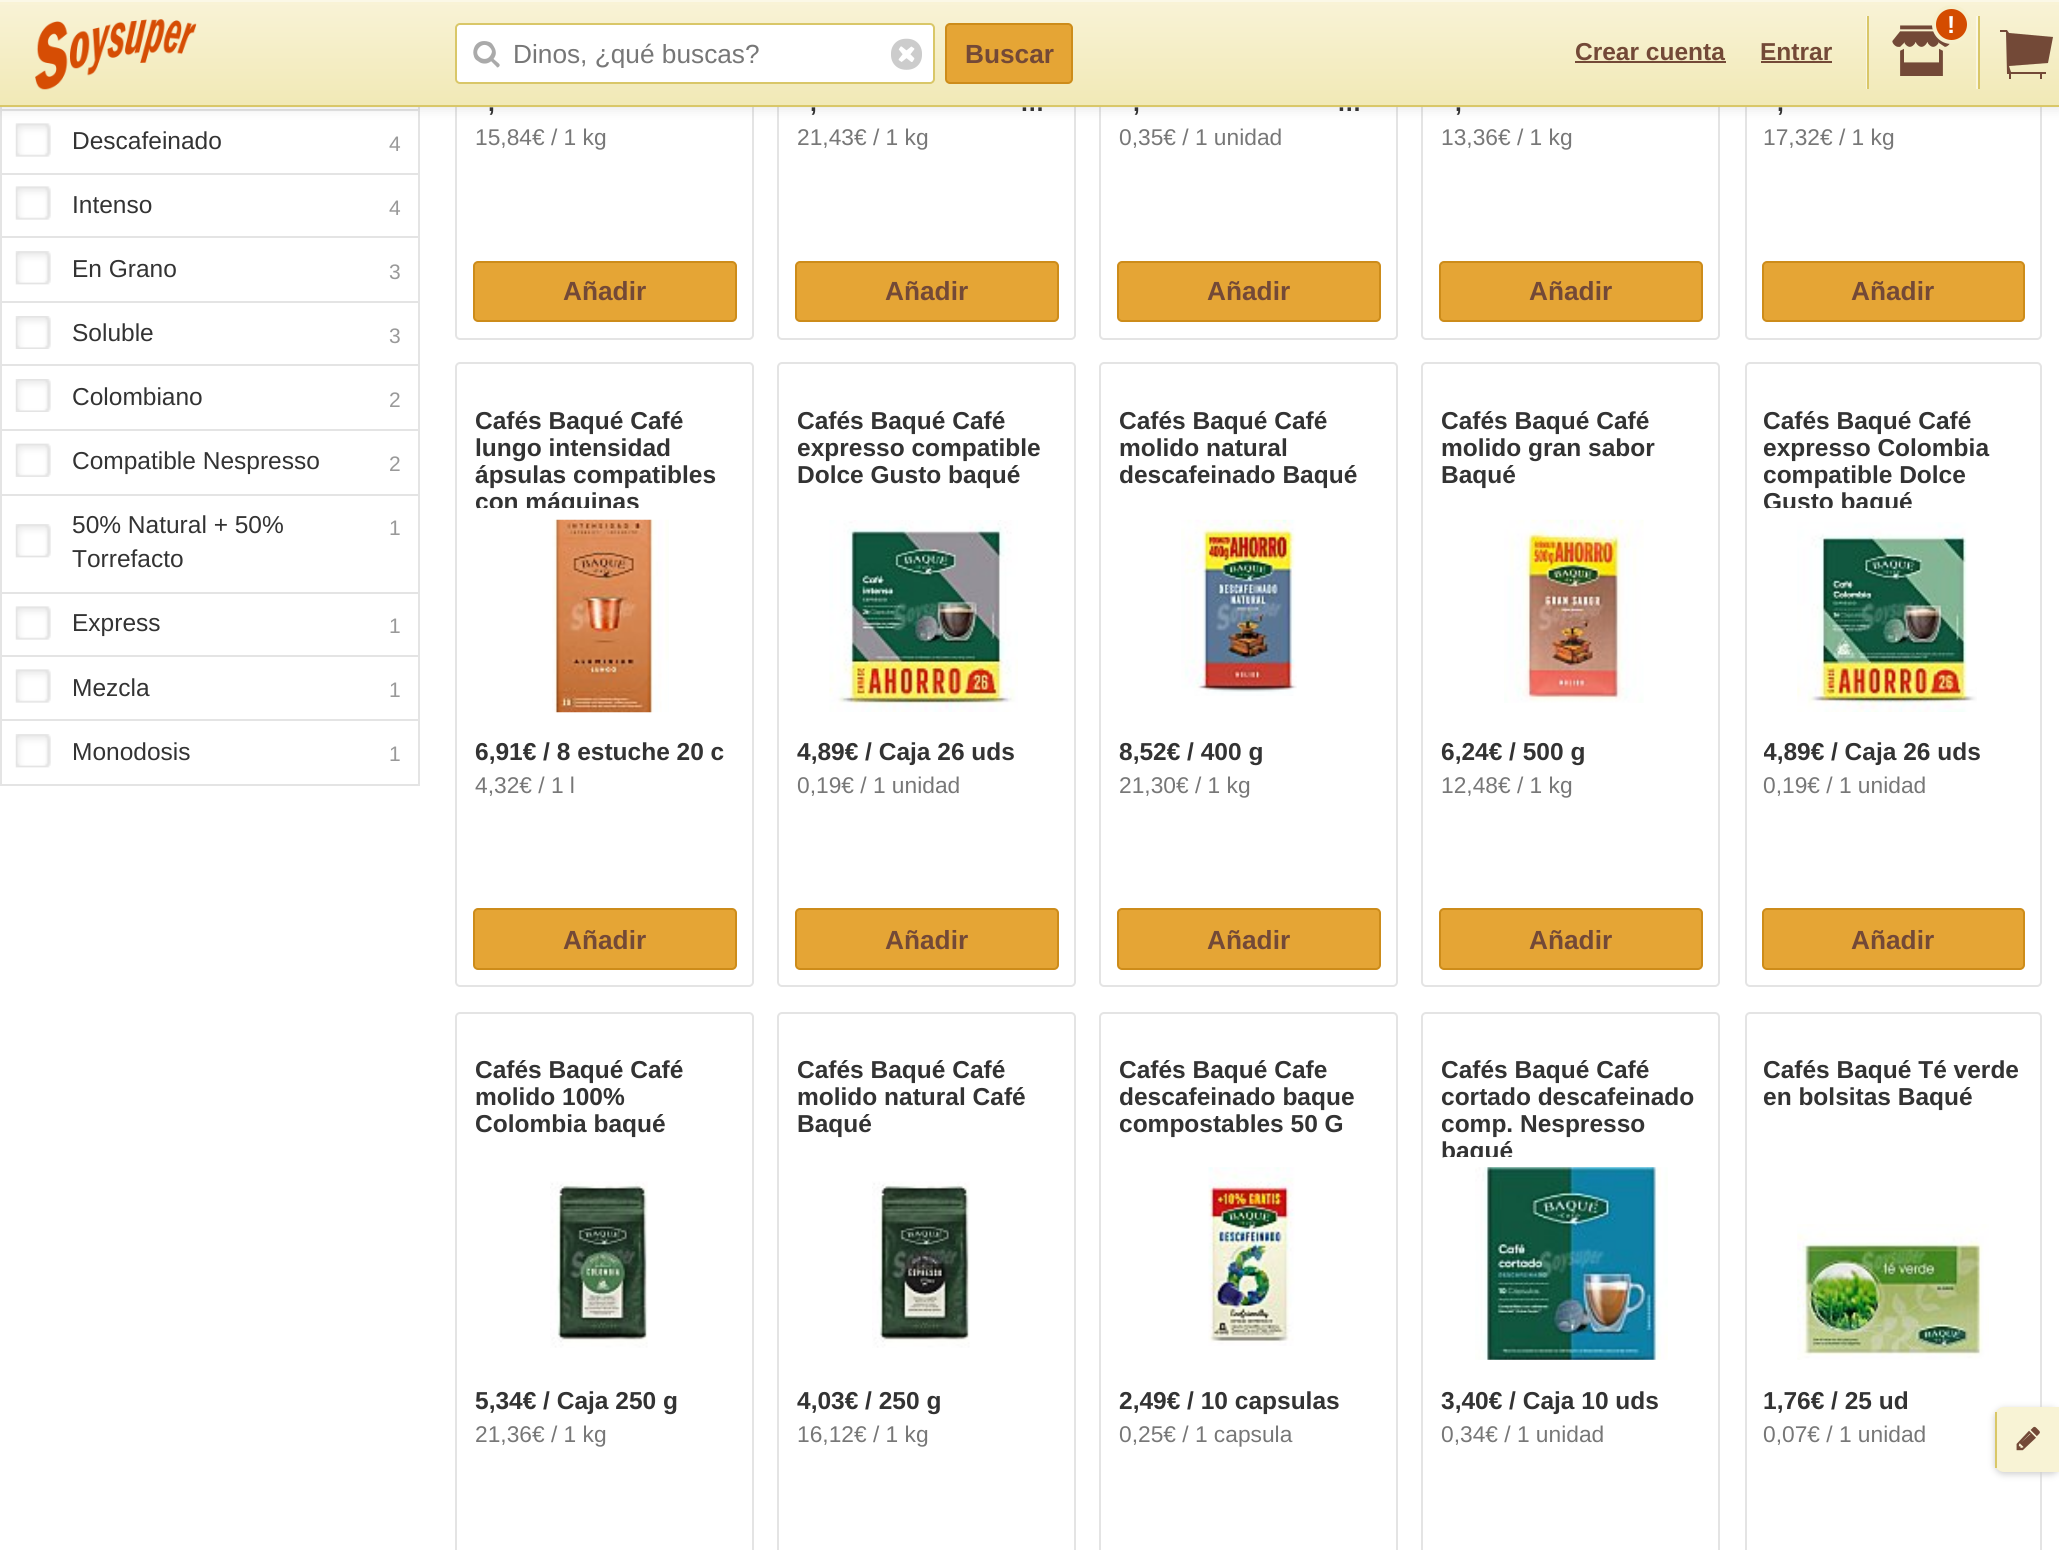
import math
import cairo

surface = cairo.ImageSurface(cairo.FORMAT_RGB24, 2059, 1550)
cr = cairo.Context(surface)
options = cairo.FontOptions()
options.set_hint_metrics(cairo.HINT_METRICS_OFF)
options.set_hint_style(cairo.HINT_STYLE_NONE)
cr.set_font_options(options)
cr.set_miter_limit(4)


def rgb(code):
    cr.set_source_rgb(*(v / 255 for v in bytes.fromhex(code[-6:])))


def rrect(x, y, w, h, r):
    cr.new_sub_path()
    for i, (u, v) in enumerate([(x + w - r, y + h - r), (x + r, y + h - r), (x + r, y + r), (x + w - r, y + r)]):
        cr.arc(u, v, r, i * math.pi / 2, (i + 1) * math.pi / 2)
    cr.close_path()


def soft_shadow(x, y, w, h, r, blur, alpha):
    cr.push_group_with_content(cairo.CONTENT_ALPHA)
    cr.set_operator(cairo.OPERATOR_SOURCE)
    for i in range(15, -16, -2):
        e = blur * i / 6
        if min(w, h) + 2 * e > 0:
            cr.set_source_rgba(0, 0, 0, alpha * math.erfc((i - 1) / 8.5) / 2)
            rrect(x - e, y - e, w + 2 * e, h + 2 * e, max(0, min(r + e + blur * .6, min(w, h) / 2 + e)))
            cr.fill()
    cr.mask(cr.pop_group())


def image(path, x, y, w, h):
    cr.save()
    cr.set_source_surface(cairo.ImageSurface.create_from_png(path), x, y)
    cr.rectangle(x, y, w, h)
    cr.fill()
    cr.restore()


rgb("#ffffff")
cr.paint()
cr.rectangle(1, -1, 418, 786)
rgb("#e4e4e4")
cr.stroke()
cr.rectangle(2, 109, 416, 2)
cr.fill()
image("img/5.png", 15, 123, 36, 34)
rrect(456, -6, 297, 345, 4)
cr.stroke()
rrect(778, -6, 297, 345, 4)
cr.stroke()
rrect(1100, -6, 297, 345, 4)
cr.stroke()
rrect(1422, -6, 297, 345, 4)
cr.stroke()
rrect(1746, -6, 295, 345, 4)
cr.stroke()
rgb("#000000")
soft_shadow(0, 2, 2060, 107, 0, 6, 0.1)
gradient = cairo.LinearGradient(1030, 0, 1030, 105)
gradient.add_color_stop_rgba(0, 0.976, 0.953, 0.843, 1)
gradient.add_color_stop_rgba(1, 0.945, 0.914, 0.714, 1)
cr.set_source(gradient)
cr.rectangle(0, 2, 2059, 103)
cr.fill()
gradient = cairo.LinearGradient(1030, 0, 1030, 105)
gradient.add_color_stop_rgba(0, 0.988, 0.976, 0.922, 1)
gradient.add_color_stop_rgba(1, 0.973, 0.957, 0.859, 1)
cr.set_source(gradient)
cr.rectangle(1976, 16, 2, 73)
cr.fill()
rgb("#fbf8e7")
cr.rectangle(0, 0, 2059, 2)
cr.fill()
rgb("#d9c768")
cr.rectangle(0, 105, 2059, 2)
cr.fill()
image("img/1.png", 35, 19, 162, 71)
rgb("#ffffff")
rrect(456, 24, 478, 59, 4)
cr.fill_preserve()
rgb("#d9c768")
cr.stroke()
image("img/2.png", 473, 41, 27, 27)
image("img/3.png", 891, 38, 31, 32)
rgb("#e5a535")
rrect(946, 24, 126, 59, 4)
cr.fill_preserve()
rgb("#cd8c1a")
cr.stroke()
rgb("#734937")
cr.rectangle(1575, 61, 151, 2)
cr.rectangle(1761, 61, 71, 2)
cr.fill()
cr.set_source_rgba(1, 1, 1, 0.5)
cr.rectangle(1866, 16, 1, 73)
cr.fill()
rgb("#d9c768")
cr.rectangle(1867, 16, 2, 73)
cr.fill()
image("img/4.png", 1892, 25, 58, 51)
rgb("#d44c00")
cr.arc(1951.5, 24.5, 17.5, 0, 2 * math.pi)
cr.fill_preserve()
rgb("#f6f0cd")
cr.set_line_width(4)
cr.stroke()
rgb("#d9c768")
cr.rectangle(1978, 16, 2, 73)
cr.fill()
rgb("#734937")
cr.new_path()
cr.move_to(2000, 32)
cr.line_to(2006, 32)
cr.line_to(2007, 74)
cr.line_to(2009, 74)
cr.line_to(2009, 79)
cr.line_to(2011, 79)
cr.line_to(2011, 74)
cr.line_to(2040, 74)
cr.line_to(2040, 79)
cr.line_to(2042, 79)
cr.line_to(2042, 74)
cr.line_to(2046, 74)
cr.line_to(2046, 72)
cr.line_to(2011, 72)
cr.line_to(2009, 66)
cr.line_to(2048, 63)
cr.line_to(2053, 37)
cr.line_to(2009, 33)
cr.line_to(2007, 30)
cr.line_to(2000, 30)
cr.close_path()
cr.fill()
rgb("#e4e4e4")
cr.rectangle(2, 173, 416, 2)
cr.fill()
image("img/5.png", 15, 186, 36, 34)
cr.rectangle(2, 236, 416, 2)
cr.fill()
image("img/6.png", 15, 251, 36, 34)
cr.rectangle(2, 301, 416, 2)
cr.fill()
image("img/7.png", 15, 316, 36, 33)
cr.rectangle(2, 364, 416, 2)
cr.fill()
image("img/7.png", 15, 379, 36, 33)
cr.rectangle(2, 429, 416, 2)
cr.fill()
image("img/8.png", 15, 443, 36, 34)
cr.rectangle(2, 494, 416, 2)
cr.fill()
image("img/6.png", 15, 524, 36, 34)
cr.rectangle(2, 592, 416, 2)
cr.fill()
image("img/5.png", 15, 606, 36, 34)
cr.rectangle(2, 655, 416, 2)
cr.fill()
image("img/5.png", 15, 669, 36, 34)
cr.rectangle(2, 719, 416, 2)
cr.fill()
image("img/9.png", 15, 734, 36, 34)
rgb("#e5a535")
rrect(474, 262, 262, 59, 4)
cr.fill_preserve()
rgb("#cd8c1a")
cr.set_line_width(2)
cr.stroke()
rgb("#e5a535")
rrect(796, 262, 262, 59, 4)
cr.fill_preserve()
rgb("#cd8c1a")
cr.stroke()
rgb("#e5a535")
rrect(1118, 262, 262, 59, 4)
cr.fill_preserve()
rgb("#cd8c1a")
cr.stroke()
rgb("#e5a535")
rrect(1440, 262, 262, 59, 4)
cr.fill_preserve()
rgb("#cd8c1a")
cr.stroke()
rgb("#e5a535")
rrect(1763, 262, 261, 59, 4)
cr.fill_preserve()
rgb("#cd8c1a")
cr.stroke()
rrect(456, 363, 297, 623, 4)
rgb("#e4e4e4")
cr.stroke()
rgb("#e5a535")
rrect(474, 909, 262, 60, 4)
cr.fill_preserve()
rgb("#cd8c1a")
cr.stroke()
rrect(778, 363, 297, 623, 4)
rgb("#e4e4e4")
cr.stroke()
image("img/11.png", 829, 520, 189, 192)
rgb("#e5a535")
rrect(796, 909, 262, 60, 4)
cr.fill_preserve()
rgb("#cd8c1a")
cr.stroke()
rrect(1100, 363, 297, 623, 4)
rgb("#e4e4e4")
cr.stroke()
image("img/12.png", 1181, 519, 116, 177)
rgb("#e5a535")
rrect(1118, 909, 262, 60, 4)
cr.fill_preserve()
rgb("#cd8c1a")
cr.stroke()
rrect(1422, 363, 297, 623, 4)
rgb("#e4e4e4")
cr.stroke()
image("img/13.png", 1504, 519, 140, 184)
rgb("#e5a535")
rrect(1440, 909, 262, 60, 4)
cr.fill_preserve()
rgb("#cd8c1a")
cr.stroke()
rrect(1746, 363, 295, 623, 4)
rgb("#e4e4e4")
cr.stroke()
rgb("#e5a535")
rrect(1763, 909, 261, 60, 4)
cr.fill_preserve()
rgb("#cd8c1a")
cr.stroke()
rrect(456, 1013, 297, 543, 4)
rgb("#e4e4e4")
cr.stroke()
image("img/15.png", 550, 1181, 98, 167)
rrect(778, 1013, 297, 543, 4)
cr.stroke()
image("img/16.png", 872, 1181, 98, 167)
rrect(1100, 1013, 297, 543, 4)
cr.stroke()
image("img/17.png", 1208, 1167, 87, 179)
rrect(1422, 1013, 297, 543, 4)
cr.stroke()
rrect(1746, 1013, 295, 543, 4)
cr.stroke()
image("img/19.png", 1797, 1224, 192, 136)
rgb("#cccccc")
soft_shadow(1995, 1409, 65, 65, 9, 3.5, 1)
rgb("#f8f3d5")
cr.new_path()
cr.move_to(2004, 1407)
cr.line_to(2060, 1407)
cr.line_to(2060, 1472)
cr.line_to(2004, 1472)
cr.curve_to(1999, 1472, 1995, 1468, 1995, 1463)
cr.line_to(1995, 1416)
cr.curve_to(1995, 1411, 1999, 1407, 2004, 1407)
cr.close_path()
cr.fill()
rgb("#d9c768")
cr.rectangle(1995, 1412, 2, 56)
cr.fill()
image("img/20.png", 2016, 1426, 24, 25)
cr.save()
cr.rectangle(513, 39, 371, 29)
cr.clip()
cr.select_font_face("Liberation Sans")
cr.set_font_size(26.25)
rgb("#777777")
cr.move_to(513, 63)
cr.show_text("Dinos, ¿qué buscas?")
cr.restore()
cr.select_font_face("Liberation Sans", cairo.FONT_SLANT_NORMAL, cairo.FONT_WEIGHT_BOLD)
cr.set_font_size(26.25)
rgb("#734937")
cr.move_to(965, 63)
cr.show_text("Buscar")
cr.set_font_size(24.5)
cr.move_to(1575, 60)
cr.show_text("Crear cuenta")
cr.move_to(1760, 60)
cr.show_text("Entrar")
rgb("#ffffff")
cr.move_to(1947, 33)
cr.show_text("!")
cr.select_font_face("Liberation Sans")
rgb("#333333")
cr.move_to(72, 149)
cr.show_text("Descafeinado")
cr.set_font_size(21)
rgb("#999999")
cr.move_to(389, 151)
cr.show_text("4")
cr.set_font_size(24.5)
rgb("#333333")
cr.move_to(72, 213)
cr.show_text("Intenso")
cr.set_font_size(21)
rgb("#999999")
cr.move_to(389, 215)
cr.show_text("4")
cr.set_font_size(24.5)
rgb("#333333")
cr.move_to(72, 277)
cr.show_text("En Grano")
cr.set_font_size(21)
rgb("#999999")
cr.move_to(389, 279)
cr.show_text("3")
cr.set_font_size(24.5)
rgb("#333333")
cr.move_to(72, 341)
cr.show_text("Soluble")
cr.set_font_size(21)
rgb("#999999")
cr.move_to(389, 343)
cr.show_text("3")
cr.set_font_size(24.5)
rgb("#333333")
cr.move_to(72, 405)
cr.show_text("Colombiano")
cr.set_font_size(21)
rgb("#999999")
cr.move_to(389, 407)
cr.show_text("2")
cr.set_font_size(24.5)
rgb("#333333")
cr.move_to(72, 469)
cr.show_text("Compatible Nespresso")
cr.set_font_size(21)
rgb("#999999")
cr.move_to(389, 471)
cr.show_text("2")
cr.set_font_size(24.5)
rgb("#333333")
cr.move_to(72, 533)
cr.show_text("50% Natural + 50%")
cr.set_font_size(21)
rgb("#999999")
cr.move_to(389, 535)
cr.show_text("1")
cr.set_font_size(24.5)
rgb("#333333")
cr.move_to(72, 567)
cr.show_text("Torrefacto")
cr.move_to(72, 631)
cr.show_text("Express")
cr.set_font_size(21)
rgb("#999999")
cr.move_to(389, 633)
cr.show_text("1")
cr.set_font_size(24.5)
rgb("#333333")
cr.move_to(72, 696)
cr.show_text("Mezcla")
cr.set_font_size(21)
rgb("#999999")
cr.move_to(389, 697)
cr.show_text("1")
cr.set_font_size(24.5)
rgb("#333333")
cr.move_to(72, 760)
cr.show_text("Monodosis")
cr.set_font_size(21)
rgb("#999999")
cr.move_to(389, 761)
cr.show_text("1")
cr.select_font_face("Liberation Sans", cairo.FONT_SLANT_NORMAL, cairo.FONT_WEIGHT_BOLD)
cr.set_font_size(24.5)
rgb("#333333")
cr.move_to(488, 111)
cr.show_text(",")
cr.select_font_face("Liberation Sans")
cr.set_font_size(22.75)
rgb("#777777")
cr.move_to(475, 145)
cr.show_text("15,84€ / 1 kg")
cr.select_font_face("Liberation Sans", cairo.FONT_SLANT_NORMAL, cairo.FONT_WEIGHT_BOLD)
cr.set_font_size(26.25)
rgb("#734937")
cr.move_to(563, 300)
cr.show_text("Añadir")
cr.set_font_size(24.5)
rgb("#333333")
cr.move_to(810, 111)
cr.show_text(",")
cr.move_to(1020, 111)
cr.show_text("…")
cr.select_font_face("Liberation Sans")
cr.set_font_size(22.75)
rgb("#777777")
cr.move_to(797, 145)
cr.show_text("21,43€ / 1 kg")
cr.select_font_face("Liberation Sans", cairo.FONT_SLANT_NORMAL, cairo.FONT_WEIGHT_BOLD)
cr.set_font_size(26.25)
rgb("#734937")
cr.move_to(885, 300)
cr.show_text("Añadir")
cr.set_font_size(24.5)
rgb("#333333")
cr.move_to(1133, 111)
cr.show_text(",")
cr.move_to(1337, 111)
cr.show_text("…")
cr.select_font_face("Liberation Sans")
cr.set_font_size(22.75)
rgb("#777777")
cr.move_to(1119, 145)
cr.show_text("0,35€ / 1 unidad")
cr.select_font_face("Liberation Sans", cairo.FONT_SLANT_NORMAL, cairo.FONT_WEIGHT_BOLD)
cr.set_font_size(26.25)
rgb("#734937")
cr.move_to(1207, 300)
cr.show_text("Añadir")
cr.set_font_size(24.5)
rgb("#333333")
cr.move_to(1455, 111)
cr.show_text(",")
cr.select_font_face("Liberation Sans")
cr.set_font_size(22.75)
rgb("#777777")
cr.move_to(1441, 145)
cr.show_text("13,36€ / 1 kg")
cr.select_font_face("Liberation Sans", cairo.FONT_SLANT_NORMAL, cairo.FONT_WEIGHT_BOLD)
cr.set_font_size(26.25)
rgb("#734937")
cr.move_to(1529, 300)
cr.show_text("Añadir")
cr.set_font_size(24.5)
rgb("#333333")
cr.move_to(1777, 111)
cr.show_text(",")
cr.select_font_face("Liberation Sans")
cr.set_font_size(22.75)
rgb("#777777")
cr.move_to(1763, 145)
cr.show_text("17,32€ / 1 kg")
cr.select_font_face("Liberation Sans", cairo.FONT_SLANT_NORMAL, cairo.FONT_WEIGHT_BOLD)
cr.set_font_size(26.25)
rgb("#734937")
cr.move_to(1851, 300)
cr.show_text("Añadir")
cr.set_font_size(24.5)
rgb("#333333")
for x, y, s in [
    (475, 429, "Cafés Baqué Café"),
    (475, 456, "lungo intensidad"),
    (475, 483, "ápsulas compatibles"),
    (475, 510, "con máquinas"),
]:
    cr.move_to(x, y)
    cr.show_text(s)
rgb("#ffffff")
rrect(474, 508, 261, 210, 5)
cr.fill()
image("img/10.png", 552, 519, 117, 194)
rgb("#333333")
cr.move_to(475, 760)
cr.show_text("6,91€ / 8 estuche 20 c")
cr.select_font_face("Liberation Sans")
cr.set_font_size(22.75)
rgb("#777777")
cr.move_to(475, 793)
cr.show_text("4,32€ / 1 l")
cr.select_font_face("Liberation Sans", cairo.FONT_SLANT_NORMAL, cairo.FONT_WEIGHT_BOLD)
cr.set_font_size(26.25)
rgb("#734937")
cr.move_to(563, 949)
cr.show_text("Añadir")
cr.set_font_size(24.5)
rgb("#333333")
for x, y, s in [
    (797, 429, "Cafés Baqué Café"),
    (797, 456, "expresso compatible"),
    (797, 483, "Dolce Gusto baqué"),
    (797, 760, "4,89€ / Caja 26 uds"),
]:
    cr.move_to(x, y)
    cr.show_text(s)
cr.select_font_face("Liberation Sans")
cr.set_font_size(22.75)
rgb("#777777")
cr.move_to(797, 793)
cr.show_text("0,19€ / 1 unidad")
cr.select_font_face("Liberation Sans", cairo.FONT_SLANT_NORMAL, cairo.FONT_WEIGHT_BOLD)
cr.set_font_size(26.25)
rgb("#734937")
cr.move_to(885, 949)
cr.show_text("Añadir")
cr.set_font_size(24.5)
rgb("#333333")
for x, y, s in [
    (1119, 429, "Cafés Baqué Café"),
    (1119, 456, "molido natural"),
    (1119, 483, "descafeinado Baqué"),
    (1119, 760, "8,52€ / 400 g"),
]:
    cr.move_to(x, y)
    cr.show_text(s)
cr.select_font_face("Liberation Sans")
cr.set_font_size(22.75)
rgb("#777777")
cr.move_to(1119, 793)
cr.show_text("21,30€ / 1 kg")
cr.select_font_face("Liberation Sans", cairo.FONT_SLANT_NORMAL, cairo.FONT_WEIGHT_BOLD)
cr.set_font_size(26.25)
rgb("#734937")
cr.move_to(1207, 949)
cr.show_text("Añadir")
cr.set_font_size(24.5)
rgb("#333333")
for x, y, s in [
    (1441, 429, "Cafés Baqué Café"),
    (1441, 456, "molido gran sabor"),
    (1441, 483, "Baqué"),
    (1441, 760, "6,24€ / 500 g"),
]:
    cr.move_to(x, y)
    cr.show_text(s)
cr.select_font_face("Liberation Sans")
cr.set_font_size(22.75)
rgb("#777777")
cr.move_to(1441, 793)
cr.show_text("12,48€ / 1 kg")
cr.select_font_face("Liberation Sans", cairo.FONT_SLANT_NORMAL, cairo.FONT_WEIGHT_BOLD)
cr.set_font_size(26.25)
rgb("#734937")
cr.move_to(1529, 949)
cr.show_text("Añadir")
cr.set_font_size(24.5)
rgb("#333333")
for x, y, s in [
    (1763, 429, "Cafés Baqué Café"),
    (1763, 456, "expresso Colombia"),
    (1763, 483, "compatible Dolce"),
    (1763, 510, "Gusto baqué"),
]:
    cr.move_to(x, y)
    cr.show_text(s)
rgb("#ffffff")
rrect(1764, 508, 259, 210, 5)
cr.fill()
image("img/14.png", 1797, 522, 180, 190)
cr.save()
cr.rectangle(1764, 735, 250, 35)
cr.clip()
rgb("#333333")
cr.move_to(1763, 760)
cr.show_text("4,89€")
cr.restore()
rgb("#333333")
cr.move_to(1831, 760)
cr.show_text("/ Caja 26 uds")
cr.select_font_face("Liberation Sans")
cr.set_font_size(22.75)
rgb("#777777")
cr.move_to(1763, 793)
cr.show_text("0,19€ / 1 unidad")
cr.select_font_face("Liberation Sans", cairo.FONT_SLANT_NORMAL, cairo.FONT_WEIGHT_BOLD)
cr.set_font_size(26.25)
rgb("#734937")
cr.move_to(1851, 949)
cr.show_text("Añadir")
cr.set_font_size(24.5)
rgb("#333333")
for x, y, s in [
    (475, 1078, "Cafés Baqué Café"),
    (475, 1105, "molido 100%"),
    (475, 1132, "Colombia baqué"),
    (475, 1409, "5,34€ / Caja 250 g"),
]:
    cr.move_to(x, y)
    cr.show_text(s)
cr.select_font_face("Liberation Sans")
cr.set_font_size(22.75)
rgb("#777777")
cr.move_to(475, 1442)
cr.show_text("21,36€ / 1 kg")
cr.select_font_face("Liberation Sans", cairo.FONT_SLANT_NORMAL, cairo.FONT_WEIGHT_BOLD)
cr.set_font_size(24.5)
rgb("#333333")
for x, y, s in [
    (797, 1078, "Cafés Baqué Café"),
    (797, 1105, "molido natural Café"),
    (797, 1132, "Baqué"),
    (797, 1409, "4,03€ / 250 g"),
]:
    cr.move_to(x, y)
    cr.show_text(s)
cr.select_font_face("Liberation Sans")
cr.set_font_size(22.75)
rgb("#777777")
cr.move_to(797, 1442)
cr.show_text("16,12€ / 1 kg")
cr.select_font_face("Liberation Sans", cairo.FONT_SLANT_NORMAL, cairo.FONT_WEIGHT_BOLD)
cr.set_font_size(24.5)
rgb("#333333")
for x, y, s in [
    (1119, 1078, "Cafés Baqué Cafe"),
    (1119, 1105, "descafeinado baque"),
    (1119, 1132, "compostables 50 G"),
    (1119, 1409, "2,49€ / 10 capsulas"),
]:
    cr.move_to(x, y)
    cr.show_text(s)
cr.select_font_face("Liberation Sans")
cr.set_font_size(22.75)
rgb("#777777")
cr.move_to(1119, 1442)
cr.show_text("0,25€ / 1 capsula")
cr.select_font_face("Liberation Sans", cairo.FONT_SLANT_NORMAL, cairo.FONT_WEIGHT_BOLD)
cr.set_font_size(24.5)
rgb("#333333")
for x, y, s in [
    (1441, 1078, "Cafés Baqué Café"),
    (1441, 1105, "cortado descafeinado"),
    (1441, 1132, "comp. Nespresso"),
    (1441, 1159, "baqué"),
]:
    cr.move_to(x, y)
    cr.show_text(s)
rgb("#ffffff")
rrect(1440, 1157, 261, 210, 5)
cr.fill()
image("img/18.png", 1475, 1167, 193, 193)
rgb("#333333")
cr.move_to(1441, 1409)
cr.show_text("3,40€ / Caja 10 uds")
cr.select_font_face("Liberation Sans")
cr.set_font_size(22.75)
rgb("#777777")
cr.move_to(1441, 1442)
cr.show_text("0,34€ / 1 unidad")
cr.select_font_face("Liberation Sans", cairo.FONT_SLANT_NORMAL, cairo.FONT_WEIGHT_BOLD)
cr.set_font_size(24.5)
rgb("#333333")
for x, y, s in [
    (1763, 1078, "Cafés Baqué Té verde"),
    (1763, 1105, "en bolsitas Baqué"),
    (1763, 1409, "1,76€ / 25 ud"),
]:
    cr.move_to(x, y)
    cr.show_text(s)
cr.select_font_face("Liberation Sans")
cr.set_font_size(22.75)
rgb("#777777")
cr.move_to(1763, 1442)
cr.show_text("0,07€ / 1 unidad")
surface.write_to_png("page.png")
